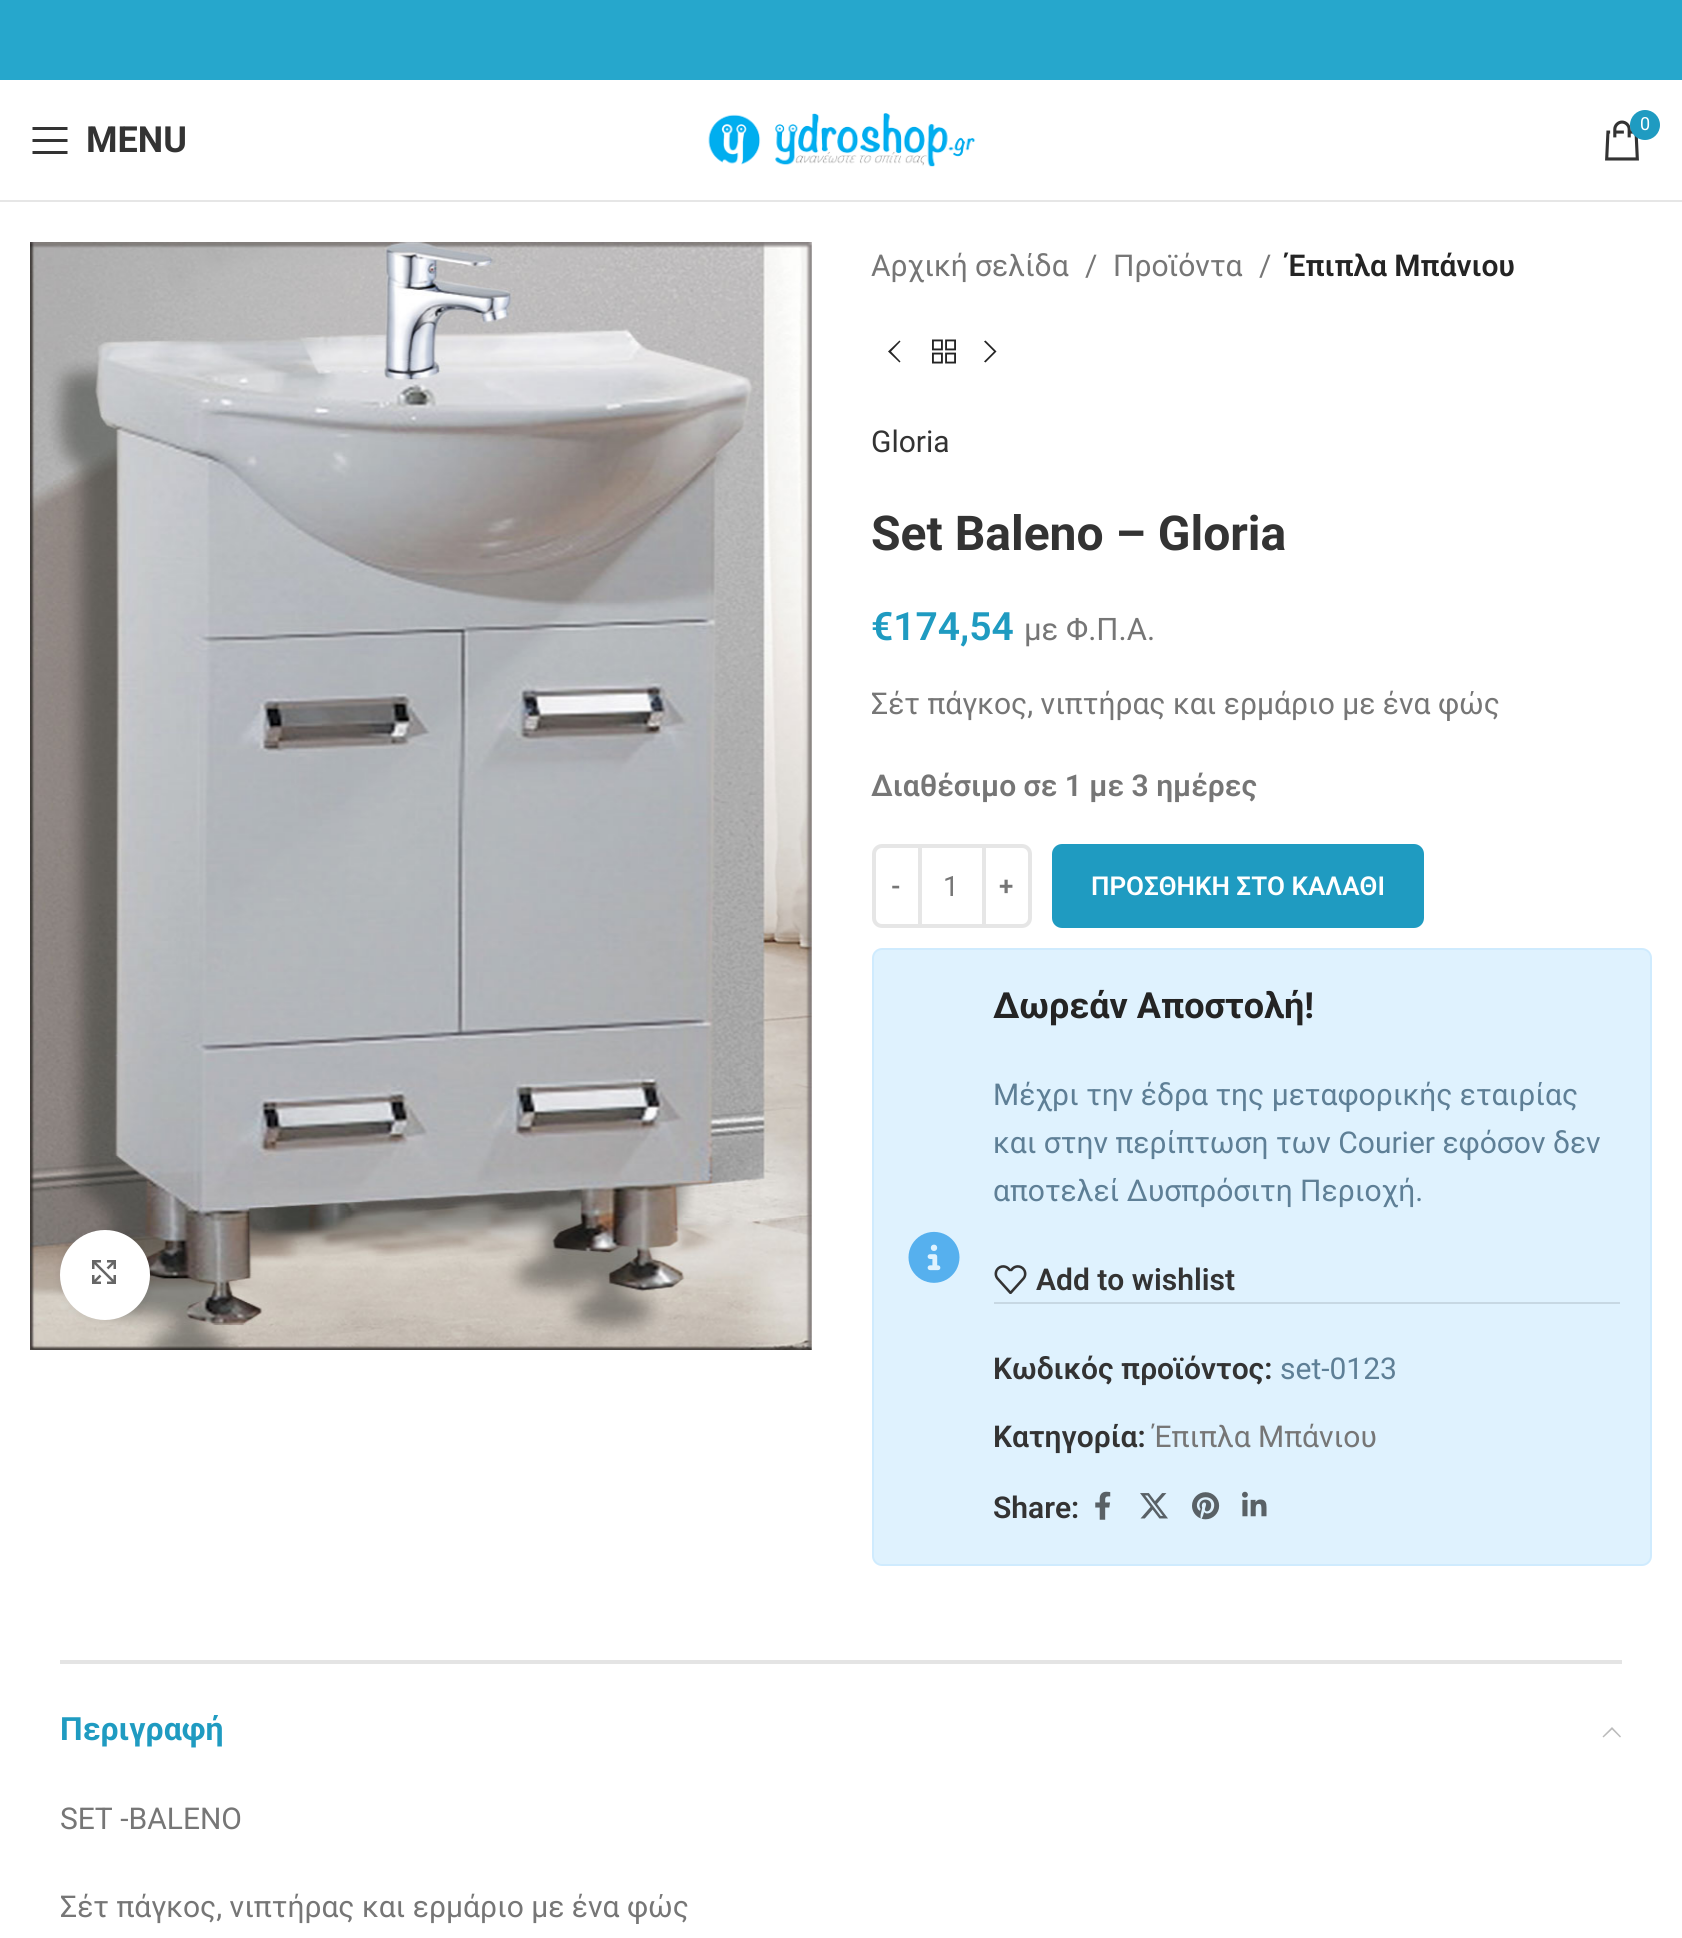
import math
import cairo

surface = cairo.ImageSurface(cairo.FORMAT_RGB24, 1682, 1938)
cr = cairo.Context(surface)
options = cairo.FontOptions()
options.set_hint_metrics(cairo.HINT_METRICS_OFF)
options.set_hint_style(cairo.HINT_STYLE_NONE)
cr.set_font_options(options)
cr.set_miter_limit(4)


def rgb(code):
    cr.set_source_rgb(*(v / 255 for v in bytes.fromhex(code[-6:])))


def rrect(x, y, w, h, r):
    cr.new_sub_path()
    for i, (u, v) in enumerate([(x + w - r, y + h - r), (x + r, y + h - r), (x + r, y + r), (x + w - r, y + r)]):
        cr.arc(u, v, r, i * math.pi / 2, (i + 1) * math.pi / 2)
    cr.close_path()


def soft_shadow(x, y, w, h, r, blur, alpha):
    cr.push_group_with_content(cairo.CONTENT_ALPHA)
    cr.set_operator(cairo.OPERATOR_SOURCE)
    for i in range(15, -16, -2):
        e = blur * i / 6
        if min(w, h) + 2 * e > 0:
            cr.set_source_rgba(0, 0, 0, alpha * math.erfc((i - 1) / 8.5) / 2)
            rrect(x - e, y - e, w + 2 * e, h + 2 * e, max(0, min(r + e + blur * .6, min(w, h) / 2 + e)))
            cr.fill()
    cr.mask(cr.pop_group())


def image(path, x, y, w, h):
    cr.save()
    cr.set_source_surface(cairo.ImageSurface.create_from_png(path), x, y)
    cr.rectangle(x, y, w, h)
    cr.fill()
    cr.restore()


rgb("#ffffff")
cr.paint()
rgb("#26a7cc")
cr.rectangle(0, 0, 1682, 80)
cr.fill()
rgb("#e6e6e6")
cr.rectangle(0, 200, 1682, 2)
cr.fill()
image("img/1.png", 708, 113, 268, 54)
image("img/2.png", 1605, 120, 34, 41)
rgb("#1f9bc1")
cr.arc(1645, 125, 15, 0, 2 * math.pi)
cr.fill()
rgb("#333333")
cr.new_path()
cr.move_to(32.5, 130)
cr.line_to(67.5, 130)
cr.line_to(67.5, 127)
cr.line_to(32.5, 127)
cr.close_path()
cr.move_to(32.5, 142)
cr.line_to(67.5, 142)
cr.line_to(67.5, 139)
cr.line_to(32.5, 139)
cr.close_path()
cr.move_to(32.5, 154)
cr.line_to(67.5, 154)
cr.line_to(67.5, 151)
cr.line_to(32.5, 151)
cr.close_path()
cr.fill()
image("img/3.png", 30, 242, 782, 1108)
rgb("#000000")
soft_shadow(60, 1230, 90, 90, 45, 5, 0.08)
rgb("#ffffff")
cr.arc(105, 1275, 45, 0, 2 * math.pi)
cr.fill()
image("img/4.png", 92, 1260, 24, 24)
rgb("#242424")
cr.new_path()
cr.move_to(900.5, 341.5)
cr.line_to(899.5, 340.5)
cr.line_to(888, 351.5)
cr.line_to(899.5, 362.5)
cr.line_to(900.5, 361.5)
cr.line_to(891, 351.5)
cr.close_path()
cr.fill()
image("img/5.png", 932, 339, 24, 25)
cr.new_path()
cr.move_to(984, 341.5)
cr.line_to(994, 351.5)
cr.line_to(984, 361.5)
cr.line_to(985.5, 362.5)
cr.line_to(996.5, 351.5)
cr.line_to(985.5, 340.5)
cr.close_path()
cr.fill()
cr.new_path()
cr.move_to(882, 846)
cr.line_to(920, 846)
cr.line_to(920, 926)
cr.line_to(882, 926)
cr.curve_to(877.5, 926, 874, 922.5, 874, 918)
cr.line_to(874, 854)
cr.curve_to(874, 849.5, 877.5, 846, 882, 846)
cr.close_path()
rgb("#e6e6e6")
cr.set_line_width(4)
cr.stroke()
cr.rectangle(922, 844, 60, 4)
cr.fill()
cr.rectangle(922, 924, 60, 4)
cr.fill()
cr.new_path()
cr.move_to(984, 846)
cr.line_to(1022, 846)
cr.curve_to(1026.5, 846, 1030, 849.5, 1030, 854)
cr.line_to(1030, 918)
cr.curve_to(1030, 922.5, 1026.5, 926, 1022, 926)
cr.line_to(984, 926)
cr.close_path()
cr.stroke()
rgb("#1f9bc1")
rrect(1052, 844, 372, 84, 10)
cr.fill()
rgb("#dff2fe")
rrect(873, 949, 778, 616, 9)
cr.fill_preserve()
rgb("#cfebfe")
cr.set_line_width(2)
cr.stroke()
image("img/6.png", 908, 1231, 52, 52)
image("img/7.png", 994, 1265, 33, 29)
rgb("#c7d8e3")
cr.rectangle(994, 1302, 626, 2)
cr.fill()
image("img/8.png", 1095, 1491, 16, 29)
image("img/9.png", 1140, 1493, 28, 26)
image("img/10.png", 1192, 1492, 28, 28)
image("img/11.png", 1242, 1491, 25, 26)
rgb("#e4e4e4")
cr.rectangle(60, 1660, 1562, 4)
cr.fill()
rgb("#bbbbbb")
cr.new_path()
cr.move_to(1603.5, 1737.5)
cr.line_to(1612, 1729.5)
cr.line_to(1620, 1737.5)
cr.line_to(1621, 1736.5)
cr.line_to(1612, 1727)
cr.line_to(1602.5, 1736.5)
cr.close_path()
cr.fill()
cr.select_font_face("Roboto")
cr.set_font_size(18)
rgb("#ffffff")
cr.move_to(1640, 130)
cr.show_text("0")
cr.select_font_face("Roboto", cairo.FONT_SLANT_NORMAL, cairo.FONT_WEIGHT_BOLD)
cr.set_font_size(36)
rgb("#333333")
cr.move_to(86, 152)
cr.show_text("MENU")
cr.select_font_face("Roboto")
cr.set_font_size(30)
rgb("#767676")
for x, y, s in [
    (871, 276, "Αρχική σελίδα"),
    (1085, 276, "/"),
    (1113, 276, "Προϊόντα"),
    (1259, 276, "/"),
]:
    cr.move_to(x, y)
    cr.show_text(s)
cr.select_font_face("Roboto SemiBold")
rgb("#242424")
cr.move_to(1287, 276)
cr.show_text("Έπιπλα Μπάνιου")
cr.select_font_face("Roboto")
rgb("#333333")
cr.move_to(871, 452)
cr.show_text("Gloria")
cr.select_font_face("Roboto", cairo.FONT_SLANT_NORMAL, cairo.FONT_WEIGHT_BOLD)
cr.set_font_size(48)
cr.move_to(871, 550)
cr.show_text("Set Baleno – Gloria")
cr.select_font_face("Roboto SemiBold")
cr.set_font_size(39)
rgb("#1f9bc1")
cr.move_to(871, 640)
cr.show_text("€174,54")
cr.select_font_face("Roboto")
cr.set_font_size(31)
rgb("#767676")
cr.move_to(1024, 640)
cr.show_text("με Φ.Π.Α.")
cr.set_font_size(30)
cr.move_to(871, 714)
cr.show_text("Σέτ πάγκος, νιπτήρας και ερμάριο με ένα φώς")
cr.select_font_face("Roboto SemiBold")
cr.move_to(871, 796)
cr.show_text("Διαθέσιμο σε 1 με 3 ημέρες")
cr.set_font_size(26)
cr.move_to(891, 895)
cr.show_text("-")
cr.select_font_face("Roboto")
cr.set_font_size(28)
cr.move_to(943, 896)
cr.show_text("1")
cr.select_font_face("Roboto SemiBold")
cr.set_font_size(26)
cr.move_to(999, 895)
cr.show_text("+")
rgb("#ffffff")
cr.move_to(1091, 895)
cr.show_text("ΠΡΟΣΘΗΚΗ ΣΤΟ ΚΑΛΑΘΙ")
cr.select_font_face("Roboto", cairo.FONT_SLANT_NORMAL, cairo.FONT_WEIGHT_BOLD)
cr.set_font_size(36)
rgb("#242424")
cr.move_to(993, 1018)
cr.show_text("Δωρεάν Αποστολή!")
cr.select_font_face("Roboto")
cr.set_font_size(30)
rgb("#5e7f96")
for x, y, s in [
    (993, 1105, "Μέχρι την έδρα της μεταφορικής εταιρίας"),
    (993, 1153, "και στην περίπτωση των Courier εφόσον δεν"),
    (993, 1201, "αποτελεί Δυσπρόσιτη Περιοχή."),
]:
    cr.move_to(x, y)
    cr.show_text(s)
cr.select_font_face("Roboto SemiBold")
rgb("#333333")
cr.move_to(1036, 1290)
cr.show_text("Add to wishlist")
cr.move_to(993, 1379)
cr.show_text("Κωδικός προϊόντος:")
cr.select_font_face("Roboto")
rgb("#5e7f96")
cr.move_to(1280, 1379)
cr.show_text("set-0123")
cr.select_font_face("Roboto SemiBold")
rgb("#333333")
cr.move_to(993, 1447)
cr.show_text("Κατηγορία:")
cr.select_font_face("Roboto")
rgb("#767676")
cr.move_to(1153, 1447)
cr.show_text("Έπιπλα Μπάνιου")
cr.select_font_face("Roboto SemiBold")
rgb("#333333")
cr.move_to(993, 1518)
cr.show_text("Share:")
cr.select_font_face("Roboto", cairo.FONT_SLANT_NORMAL, cairo.FONT_WEIGHT_BOLD)
cr.set_font_size(32)
rgb("#1f9bc1")
cr.move_to(60, 1740)
cr.show_text("Περιγραφή")
cr.select_font_face("Roboto")
cr.set_font_size(30)
rgb("#767676")
cr.move_to(60, 1829)
cr.show_text("SET -BALENO")
cr.move_to(60, 1917)
cr.show_text("Σέτ πάγκος, νιπτήρας και ερμάριο με ένα φώς")
surface.write_to_png("page.png")
